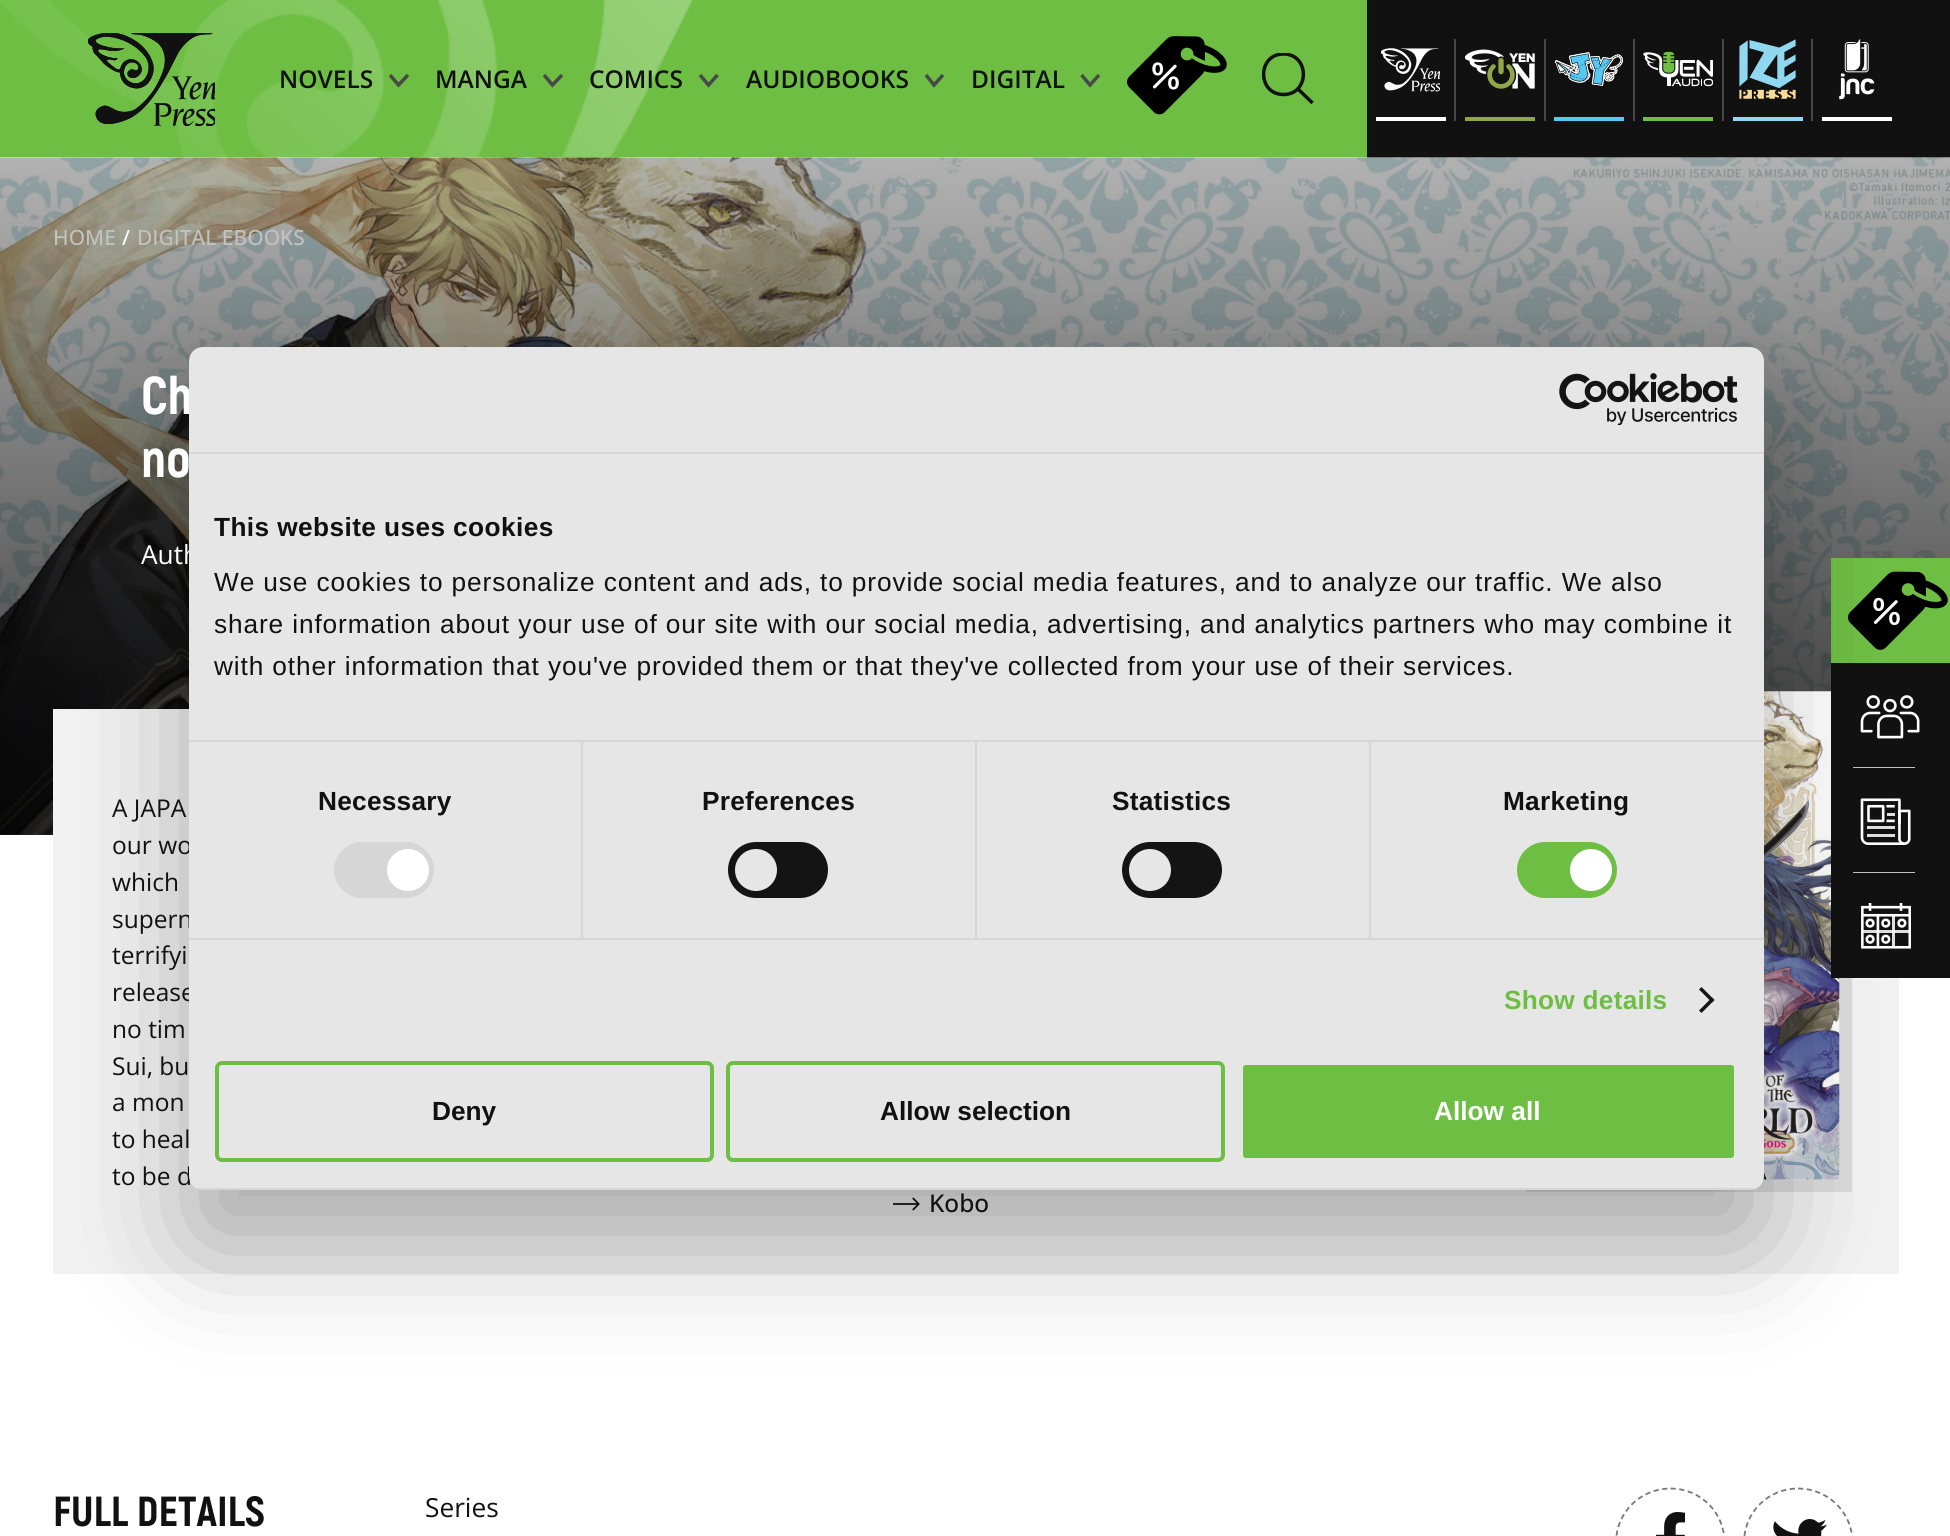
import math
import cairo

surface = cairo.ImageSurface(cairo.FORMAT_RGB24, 1950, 1536)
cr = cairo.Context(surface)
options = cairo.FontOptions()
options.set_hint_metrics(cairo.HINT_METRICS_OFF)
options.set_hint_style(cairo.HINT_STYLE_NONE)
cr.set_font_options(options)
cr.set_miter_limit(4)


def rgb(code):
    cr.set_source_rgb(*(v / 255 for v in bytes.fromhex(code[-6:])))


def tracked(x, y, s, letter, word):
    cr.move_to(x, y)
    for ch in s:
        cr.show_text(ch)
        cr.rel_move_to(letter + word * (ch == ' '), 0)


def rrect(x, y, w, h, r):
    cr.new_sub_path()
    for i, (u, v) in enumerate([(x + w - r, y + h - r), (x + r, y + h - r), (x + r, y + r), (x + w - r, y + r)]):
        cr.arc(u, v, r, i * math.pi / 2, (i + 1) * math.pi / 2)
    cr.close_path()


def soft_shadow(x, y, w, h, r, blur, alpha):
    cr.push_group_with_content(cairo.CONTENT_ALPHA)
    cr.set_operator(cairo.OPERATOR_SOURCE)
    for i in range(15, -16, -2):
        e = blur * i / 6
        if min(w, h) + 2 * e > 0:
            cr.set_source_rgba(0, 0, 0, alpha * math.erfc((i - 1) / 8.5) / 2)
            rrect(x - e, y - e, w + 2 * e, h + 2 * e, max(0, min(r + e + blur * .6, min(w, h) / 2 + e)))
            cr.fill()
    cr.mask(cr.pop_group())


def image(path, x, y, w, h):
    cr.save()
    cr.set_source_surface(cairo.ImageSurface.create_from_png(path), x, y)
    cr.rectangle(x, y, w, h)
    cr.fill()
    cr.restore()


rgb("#ffffff")
cr.paint()
rgb("#6ebe44")
cr.rectangle(0, 0, 1367, 158)
cr.fill()
image("img/1.png", 0, 0, 693, 158)
image("img/2.png", 88, 33, 127, 93)
cr.new_path()
cr.move_to(390, 75)
cr.line_to(398.5, 85)
cr.line_to(408, 75)
rgb("#484848")
cr.set_line_width(3.5)
cr.stroke()
cr.new_path()
cr.move_to(544, 75)
cr.line_to(552.5, 85)
cr.line_to(562, 75)
cr.stroke()
cr.new_path()
cr.move_to(700, 75)
cr.line_to(708.5, 85)
cr.line_to(717.5, 75)
cr.stroke()
cr.new_path()
cr.move_to(926, 75)
cr.line_to(934, 85)
cr.line_to(943, 75)
cr.stroke()
cr.new_path()
cr.move_to(1081.5, 75)
cr.line_to(1090, 85)
cr.line_to(1099, 75)
cr.stroke()
image("img/3.png", 1127, 36, 100, 79)
cr.save()
cr.rectangle(1262, 53, 52, 52)
cr.clip()
cr.new_path()
cr.move_to(1283.5, 94.5)
cr.curve_to(1310, 94.5, 1310, 54, 1283.5, 54)
cr.curve_to(1257, 54, 1257, 94.5, 1283.5, 94.5)
cr.close_path()
rgb("#111111")
cr.stroke()
cr.restore()
cr.new_path()
cr.move_to(1298, 89)
cr.line_to(1312.5, 103)
rgb("#111111")
cr.stroke()
cr.rectangle(1367, 0, 583, 158)
cr.fill()
rgb("#484848")
cr.rectangle(1454, 39, 2, 82)
cr.fill()
image("img/4.png", 1381, 48, 59, 44)
rgb("#ffffff")
cr.rectangle(1376, 117, 70, 4)
cr.fill()
rgb("#484848")
cr.rectangle(1544, 39, 2, 82)
cr.fill()
image("img/5.png", 1465, 49, 70, 40)
rgb("#91a647")
cr.rectangle(1465, 117, 70, 4)
cr.fill()
rgb("#484848")
cr.rectangle(1633, 39, 2, 82)
cr.fill()
image("img/6.png", 1554, 52, 69, 34)
rgb("#55c9f4")
cr.rectangle(1554, 117, 70, 4)
cr.fill()
rgb("#484848")
cr.rectangle(1722, 39, 2, 82)
cr.fill()
image("img/7.png", 1643, 51, 70, 36)
rgb("#6ebe44")
cr.rectangle(1643, 117, 70, 4)
cr.fill()
rgb("#484848")
cr.rectangle(1811, 39, 2, 82)
cr.fill()
image("img/8.png", 1739, 39, 57, 60)
rgb("#90d7f0")
cr.rectangle(1733, 117, 70, 4)
cr.fill()
image("img/9.png", 1839, 39, 36, 61)
rgb("#ffffff")
cr.rectangle(1822, 117, 70, 4)
cr.fill()
image("img/10.png", 0, 157, 1950, 678)
gradient = cairo.LinearGradient(976, 157, 976, 835)
gradient.add_color_stop_rgba(0, 0, 0, 0, 0.3)
gradient.add_color_stop_rgba(1, 0, 0, 0, 0.8)
cr.set_source(gradient)
cr.rectangle(0, 158, 1950, 677)
cr.fill()
rgb("#f2f2f2")
cr.rectangle(53, 709, 1846, 565)
cr.fill()
rgb("#dbdbdb")
cr.new_path()
cr.move_to(1526, 1180)
cr.line_to(1526, 1192)
cr.line_to(1852, 1192)
cr.line_to(1852, 704)
cr.line_to(1839, 704)
cr.line_to(1839, 1180)
cr.close_path()
cr.fill()
image("img/11.png", 1763, 691, 77, 489)
image("img/12.png", 893, 1197, 27, 14)
cr.new_path()
cr.move_to(1670.5, 1488.5)
cr.curve_to(1700.5, 1488.5, 1724.5, 1512.5, 1724.5, 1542.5)
cr.curve_to(1724.5, 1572.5, 1700.5, 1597, 1670.5, 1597)
cr.curve_to(1640.5, 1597, 1616, 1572.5, 1616, 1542.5)
cr.curve_to(1616, 1512.5, 1640.5, 1488.5, 1670.5, 1488.5)
cr.close_path()
rgb("#787878")
cr.set_line_width(1.8)
cr.set_dash([5.25, 3.5])
cr.stroke()
image("img/13.png", 1656, 1512, 29, 24)
cr.new_path()
cr.move_to(1798, 1488.5)
cr.curve_to(1828, 1488.5, 1852.5, 1512.5, 1852.5, 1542.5)
cr.curve_to(1852.5, 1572.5, 1828, 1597, 1798, 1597)
cr.curve_to(1768, 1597, 1744, 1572.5, 1744, 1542.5)
cr.curve_to(1744, 1512.5, 1768, 1488.5, 1798, 1488.5)
cr.close_path()
cr.stroke()
image("img/14.png", 1773, 1519, 54, 17)
rgb("#6ebe44")
cr.rectangle(1831, 558, 119, 105)
cr.fill()
image("img/15.png", 1848, 571, 100, 79)
rgb("#111111")
cr.rectangle(1831, 663, 119, 315)
cr.fill()
image("img/16.png", 1860, 695, 60, 44)
rgb("#c2c2c2")
cr.rectangle(1853, 767, 62, 1)
cr.fill()
image("img/17.png", 1860, 798, 51, 47)
cr.rectangle(1853, 872, 62, 1)
cr.fill()
image("img/18.png", 1861, 903, 50, 46)
rgb("#000000")
soft_shadow(189, 403, 1575, 843, 14, 59.5, 0.3)
cr.select_font_face("Open Sans SemiBold")
cr.set_font_size(24.5)
rgb("#111111")
for x, y, s in [
    (279, 88, "NOVELS"),
    (435, 88, "MANGA"),
    (589, 88, "COMICS"),
    (746, 88, "AUDIOBOOKS"),
    (971, 88, "DIGITAL"),
]:
    cr.move_to(x, y)
    cr.show_text(s)
cr.select_font_face("Open Sans Medium")
cr.set_font_size(21)
rgb("#c2c2c2")
cr.move_to(53, 245)
cr.show_text("HOME")
rgb("#ffffff")
cr.move_to(122, 245)
cr.show_text("/")
rgb("#c2c2c2")
cr.move_to(137, 245)
cr.show_text("DIGITAL EBOOKS")
cr.select_font_face("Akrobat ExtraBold")
cr.set_font_size(53)
rgb("#ffffff")
cr.move_to(141, 414)
cr.show_text("Ch")
cr.move_to(141, 477)
cr.show_text("no")
cr.select_font_face("Open Sans")
cr.set_font_size(26.25)
cr.move_to(141, 564)
cr.show_text("Auth")
cr.set_font_size(24.5)
rgb("#111111")
for x, y, s in [
    (112, 817, "A JAPA"),
    (112, 854, "our wo"),
    (112, 891, "which"),
    (112, 928, "supern"),
    (112, 964, "terrifyi"),
    (112, 1001, "release"),
    (112, 1038, "no tim"),
    (112, 1075, "Sui, bu"),
    (112, 1111, "a mon"),
    (112, 1148, "to heal"),
    (112, 1185, "to be d"),
]:
    cr.move_to(x, y)
    cr.show_text(s)
cr.select_font_face("Open Sans Medium")
cr.move_to(929, 1212)
cr.show_text("Kobo")
cr.select_font_face("Akrobat ExtraBold")
cr.set_font_size(42)
cr.move_to(53, 1526)
cr.show_text("FULL DETAILS")
cr.select_font_face("Open Sans")
cr.set_font_size(26.25)
cr.move_to(425, 1517)
cr.show_text("Series")
rgb("#e6e6e6")
rrect(189, 347, 1575, 843, 14)
cr.fill()
rgb("#d6d6d6")
cr.rectangle(189, 452, 1575, 2)
cr.fill()
image("img/19.png", 1559, 373, 179, 52)
cr.rectangle(189, 740, 1575, 2)
cr.fill()
cr.select_font_face("Liberation Sans", cairo.FONT_SLANT_NORMAL, cairo.FONT_WEIGHT_BOLD)
rgb("#111111")
tracked(214, 536, "This website uses cookies", 0.4, 0)
cr.select_font_face("Liberation Sans")
for x, y, s in [
    (214, 591, "We use cookies to personalize content and ads, to provide social media features, and to analyze our traffic. We also"),
    (214, 633, "share information about your use of our site with our social media, advertising, and analytics partners who may combine it"),
    (214, 675, "with other information that you've provided them or that they've collected from your use of their services."),
]:
    tracked(x, y, s, 0.88, 0)
rgb("#d6d6d6")
cr.rectangle(189, 938, 1575, 2)
cr.fill()
cr.rectangle(581, 742, 2, 196)
cr.fill()
cr.select_font_face("Liberation Sans", cairo.FONT_SLANT_NORMAL, cairo.FONT_WEIGHT_BOLD)
rgb("#111111")
tracked(318, 810, "Necessary", 0.25, 0)
rgb("#d6d6d6")
rrect(334, 842, 100, 56, 28)
cr.fill()
rgb("#ffffff")
cr.arc(408, 870, 21, 0, 2 * math.pi)
cr.fill()
rgb("#d6d6d6")
cr.rectangle(975, 742, 2, 196)
cr.fill()
rgb("#111111")
tracked(702, 810, "Preferences", 0.25, 0)
rgb("#141414")
rrect(728, 842, 100, 56, 28)
cr.fill()
rgb("#e6e6e6")
cr.arc(756, 870, 21, 0, 2 * math.pi)
cr.fill()
rgb("#d6d6d6")
cr.rectangle(1369, 742, 2, 196)
cr.fill()
rgb("#111111")
tracked(1112, 810, "Statistics", 0.25, 0)
rgb("#141414")
rrect(1122, 842, 100, 56, 28)
cr.fill()
rgb("#e6e6e6")
cr.arc(1150, 870, 21, 0, 2 * math.pi)
cr.fill()
rgb("#111111")
tracked(1503, 810, "Marketing", 0.25, 0)
rgb("#6ebe44")
rrect(1517, 842, 100, 56, 28)
cr.fill()
rgb("#ffffff")
cr.arc(1591, 870, 21, 0, 2 * math.pi)
cr.fill()
rgb("#6ebe44")
tracked(1504, 1009, "Show details", 0.25, 0)
rgb("#141414")
cr.new_path()
cr.move_to(1701.5, 987)
cr.line_to(1714.5, 1000)
cr.line_to(1712, 1002.5)
cr.line_to(1699, 989.5)
cr.close_path()
cr.fill()
cr.new_path()
cr.move_to(1712, 997.5)
cr.line_to(1714.5, 1000)
cr.line_to(1701.5, 1013)
cr.line_to(1699, 1010.5)
cr.close_path()
cr.fill()
cr.save()
rrect(189, 347, 1575, 843, 14)
cr.clip()
rgb("#d6d6d6")
cr.rectangle(189, 1188, 1575, 2)
cr.fill()
cr.restore()
rrect(217, 1063, 495, 97, 5)
rgb("#6ebe44")
cr.set_line_width(4)
cr.set_dash([])
cr.stroke()
rgb("#111111")
cr.move_to(432, 1120)
cr.show_text("Deny")
rrect(728, 1063, 495, 97, 5)
rgb("#6ebe44")
cr.stroke()
rgb("#111111")
cr.move_to(880, 1120)
cr.show_text("Allow selection")
rgb("#6ebe44")
rrect(1241, 1063, 495, 97, 5)
cr.fill_preserve()
rgb("#e6e6e6")
cr.stroke()
rgb("#ffffff")
cr.move_to(1434, 1120)
cr.show_text("Allow all")
surface.write_to_png("page.png")
